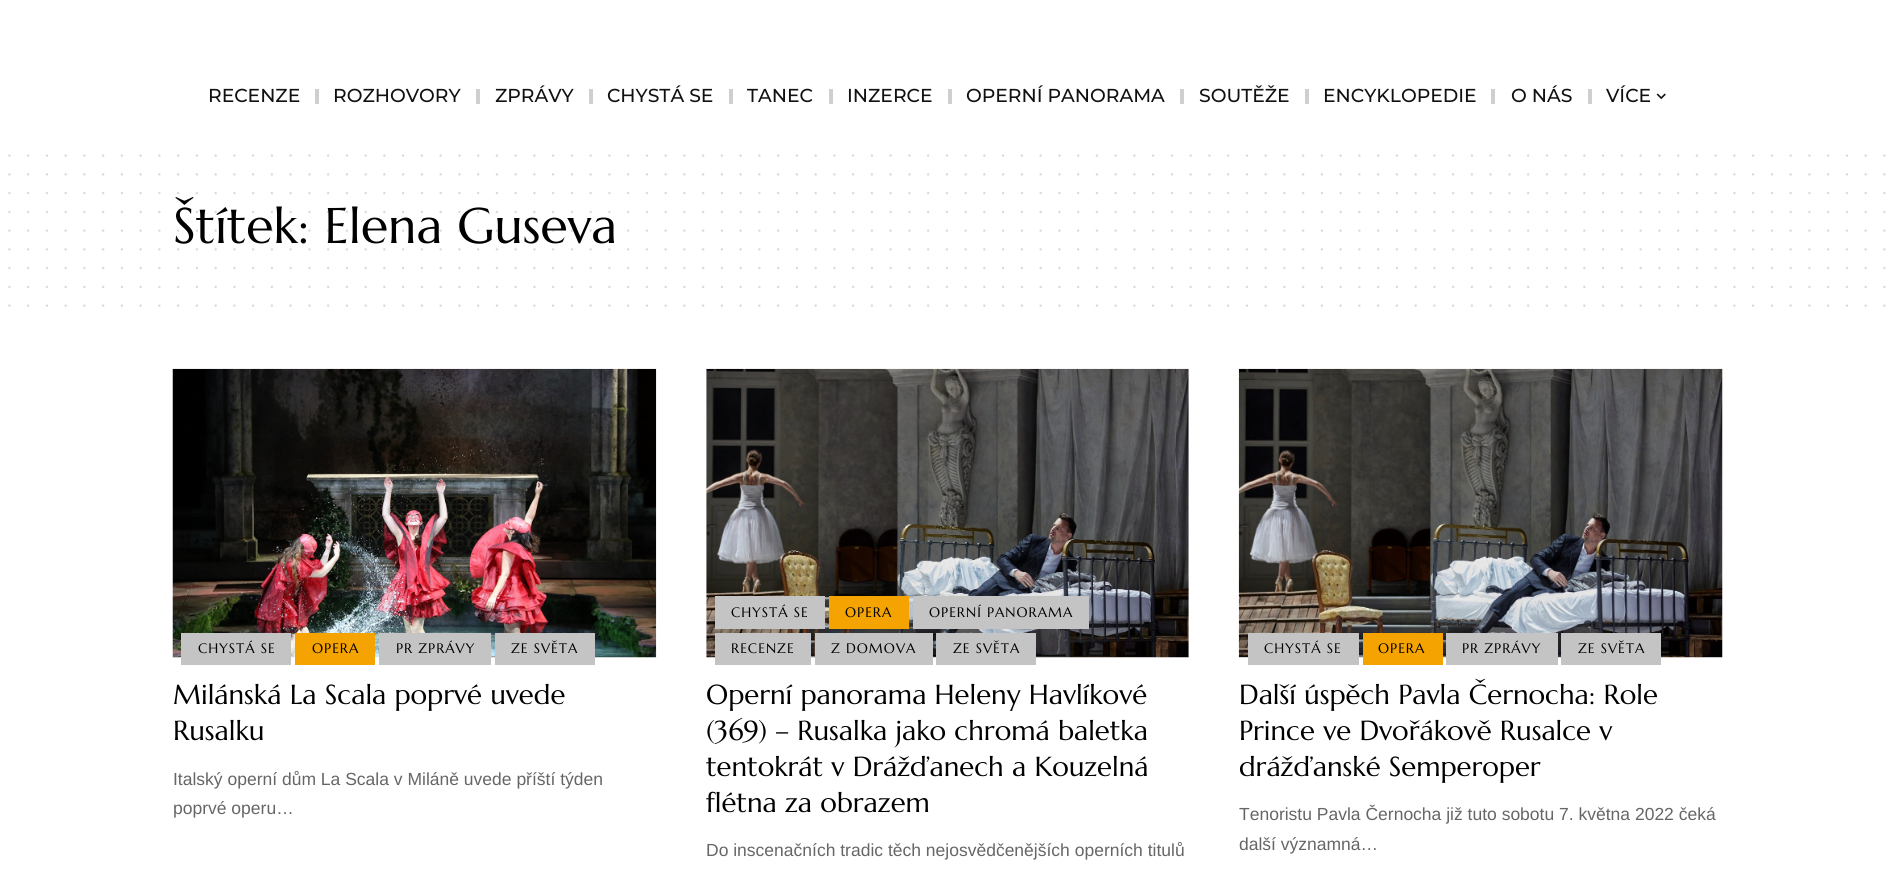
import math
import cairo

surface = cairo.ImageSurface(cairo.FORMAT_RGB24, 1894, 882)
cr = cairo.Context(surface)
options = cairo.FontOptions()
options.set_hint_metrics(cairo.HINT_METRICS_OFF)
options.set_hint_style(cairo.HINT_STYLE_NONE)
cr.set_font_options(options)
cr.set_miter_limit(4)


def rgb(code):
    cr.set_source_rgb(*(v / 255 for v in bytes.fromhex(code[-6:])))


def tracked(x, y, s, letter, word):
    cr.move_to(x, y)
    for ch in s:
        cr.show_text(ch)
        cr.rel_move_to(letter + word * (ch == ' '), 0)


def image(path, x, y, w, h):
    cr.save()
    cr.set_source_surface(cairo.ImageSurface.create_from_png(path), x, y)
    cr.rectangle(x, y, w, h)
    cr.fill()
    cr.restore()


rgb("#ffffff")
cr.paint()
for x, y, w, h, color in [
    (315, 89, 4, 15, "#cfcfcf"),
    (476, 89, 4, 15, "#cfcfcf"),
    (589, 89, 4, 15, "#cfcfcf"),
    (729, 89, 4, 15, "#cfcfcf"),
    (829, 89, 4, 15, "#cfcfcf"),
    (948, 89, 4, 15, "#cfcfcf"),
    (1180, 89, 4, 15, "#cfcfcf"),
    (1305, 89, 4, 15, "#cfcfcf"),
    (1491, 89, 4, 15, "#cfcfcf"),
    (1588, 89, 4, 15, "#cfcfcf"),
]:
    rgb(color)
    cr.rectangle(x, y, w, h)
    cr.fill()
image("img/1.png", 1656, 93, 10, 7)
cr.new_path()
cr.move_to(9.4, 155.6)
cr.line_to(1884.6, 155.6)
rgb("#dbdbdb")
cr.set_line_width(2.5)
cr.set_line_cap(cairo.LINE_CAP_ROUND)
cr.set_dash([0, 18.75])
cr.stroke()
cr.new_path()
cr.move_to(9.4, 174.4)
cr.line_to(1884.6, 174.4)
cr.stroke()
cr.new_path()
cr.move_to(9.4, 193.1)
cr.line_to(1884.6, 193.1)
cr.stroke()
cr.new_path()
cr.move_to(9.4, 249.4)
cr.line_to(1884.6, 249.4)
cr.stroke()
cr.new_path()
cr.move_to(9.4, 268.1)
cr.line_to(1884.6, 268.1)
cr.stroke()
cr.new_path()
cr.move_to(9.4, 286.9)
cr.line_to(1884.6, 286.9)
cr.stroke()
cr.new_path()
cr.move_to(9.4, 305.6)
cr.line_to(1884.6, 305.6)
cr.stroke()
image("img/2.png", 172, 368, 485, 290)
for x, y, w, h, color in [
    (181, 633, 110, 32, "#c4c4c4"),
    (295, 633, 80, 32, "#f4a300"),
    (379, 633, 112, 32, "#c4c4c4"),
    (495, 633, 100, 32, "#c4c4c4"),
]:
    rgb(color)
    cr.rectangle(x, y, w, h)
    cr.fill()
image("img/3.png", 706, 368, 483, 290)
for x, y, w, h, color in [
    (715, 596, 110, 33, "#c4c4c4"),
    (829, 596, 80, 33, "#f4a300"),
    (913, 596, 176, 33, "#c4c4c4"),
    (715, 633, 96, 32, "#c4c4c4"),
    (815, 633, 118, 32, "#c4c4c4"),
    (936, 633, 100, 32, "#c4c4c4"),
]:
    rgb(color)
    cr.rectangle(x, y, w, h)
    cr.fill()
image("img/4.png", 1238, 368, 485, 290)
for x, y, w, h, color in [
    (1248, 633, 111, 32, "#c4c4c4"),
    (1363, 633, 80, 32, "#f4a300"),
    (1446, 633, 112, 32, "#c4c4c4"),
    (1561, 633, 100, 32, "#c4c4c4"),
]:
    rgb(color)
    cr.rectangle(x, y, w, h)
    cr.fill()
cr.select_font_face("Montserrat Medium")
cr.set_font_size(18.75)
rgb("#111111")
for x, y, s in [
    (208, 102, "RECENZE"),
    (333, 102, "ROZHOVORY"),
    (495, 102, "ZPRÁVY"),
    (607, 102, "CHYSTÁ SE"),
    (747, 102, "TANEC"),
    (847, 102, "INZERCE"),
    (966, 102, "OPERNÍ PANORAMA"),
    (1199, 102, "SOUTĚŽE"),
    (1323, 102, "ENCYKLOPEDIE"),
    (1511, 102, "O NÁS"),
    (1606, 102, "VÍCE"),
]:
    cr.move_to(x, y)
    cr.show_text(s)
cr.select_font_face("Marcellus")
cr.set_font_size(50)
rgb("#000000")
cr.move_to(173, 243)
cr.show_text("Štítek: Elena Guseva")
cr.new_path()
cr.move_to(9.4, 230.6)
cr.line_to(1884.6, 230.6)
cr.set_source_rgba(0.067, 0.067, 0.067, 0.15)
cr.stroke()
cr.new_path()
cr.move_to(9.4, 211.9)
cr.line_to(1884.6, 211.9)
cr.stroke()
cr.set_font_size(13.75)
rgb("#000000")
for x, y, s in [
    (198, 653, "CHYSTÁ SE"),
    (312, 653, "OPERA"),
    (396, 653, "PR ZPRÁVY"),
    (511, 653, "ZE SVĚTA"),
]:
    tracked(x, y, s, 1, 0)
cr.set_font_size(27.5)
cr.move_to(173, 704)
cr.show_text("Milánská La Scala poprvé uvede")
cr.move_to(173, 740)
cr.show_text("Rusalku")
cr.select_font_face("Liberation Sans")
cr.set_font_size(17.5)
rgb("#666666")
cr.move_to(173, 785)
cr.show_text("Italský operní dům La Scala v Miláně uvede příští týden")
cr.move_to(173, 814)
cr.show_text("poprvé operu…")
cr.select_font_face("Marcellus")
cr.set_font_size(13.75)
rgb("#000000")
for x, y, s in [
    (731, 617, "CHYSTÁ SE"),
    (845, 617, "OPERA"),
    (929, 617, "OPERNÍ PANORAMA"),
    (731, 653, "RECENZE"),
    (831, 653, "Z DOMOVA"),
    (953, 653, "ZE SVĚTA"),
]:
    tracked(x, y, s, 1, 0)
cr.set_font_size(27.5)
for x, y, s in [
    (706, 704, "Operní panorama Heleny Havlíkové"),
    (706, 740, "(369) – Rusalka jako chromá baletka"),
    (706, 776, "tentokrát v Drážďanech a Kouzelná"),
    (706, 812, "flétna za obrazem"),
]:
    cr.move_to(x, y)
    cr.show_text(s)
cr.select_font_face("Liberation Sans")
cr.set_font_size(17.5)
rgb("#666666")
cr.move_to(706, 856)
cr.show_text("Do inscenačních tradic těch nejosvědčenějších operních titulů")
cr.select_font_face("Marcellus")
cr.set_font_size(13.75)
rgb("#000000")
for x, y, s in [
    (1264, 653, "CHYSTÁ SE"),
    (1378, 653, "OPERA"),
    (1462, 653, "PR ZPRÁVY"),
    (1578, 653, "ZE SVĚTA"),
]:
    tracked(x, y, s, 1, 0)
cr.set_font_size(27.5)
for x, y, s in [
    (1239, 704, "Další úspěch Pavla Černocha: Role"),
    (1239, 740, "Prince ve Dvořákově Rusalce v"),
    (1239, 776, "drážďanské Semperoper"),
]:
    cr.move_to(x, y)
    cr.show_text(s)
cr.select_font_face("Liberation Sans")
cr.set_font_size(17.5)
rgb("#666666")
cr.move_to(1239, 820)
cr.show_text("Tenoristu Pavla Černocha již tuto sobotu 7. května 2022 čeká")
cr.move_to(1239, 850)
cr.show_text("další významná…")
surface.write_to_png("page.png")
